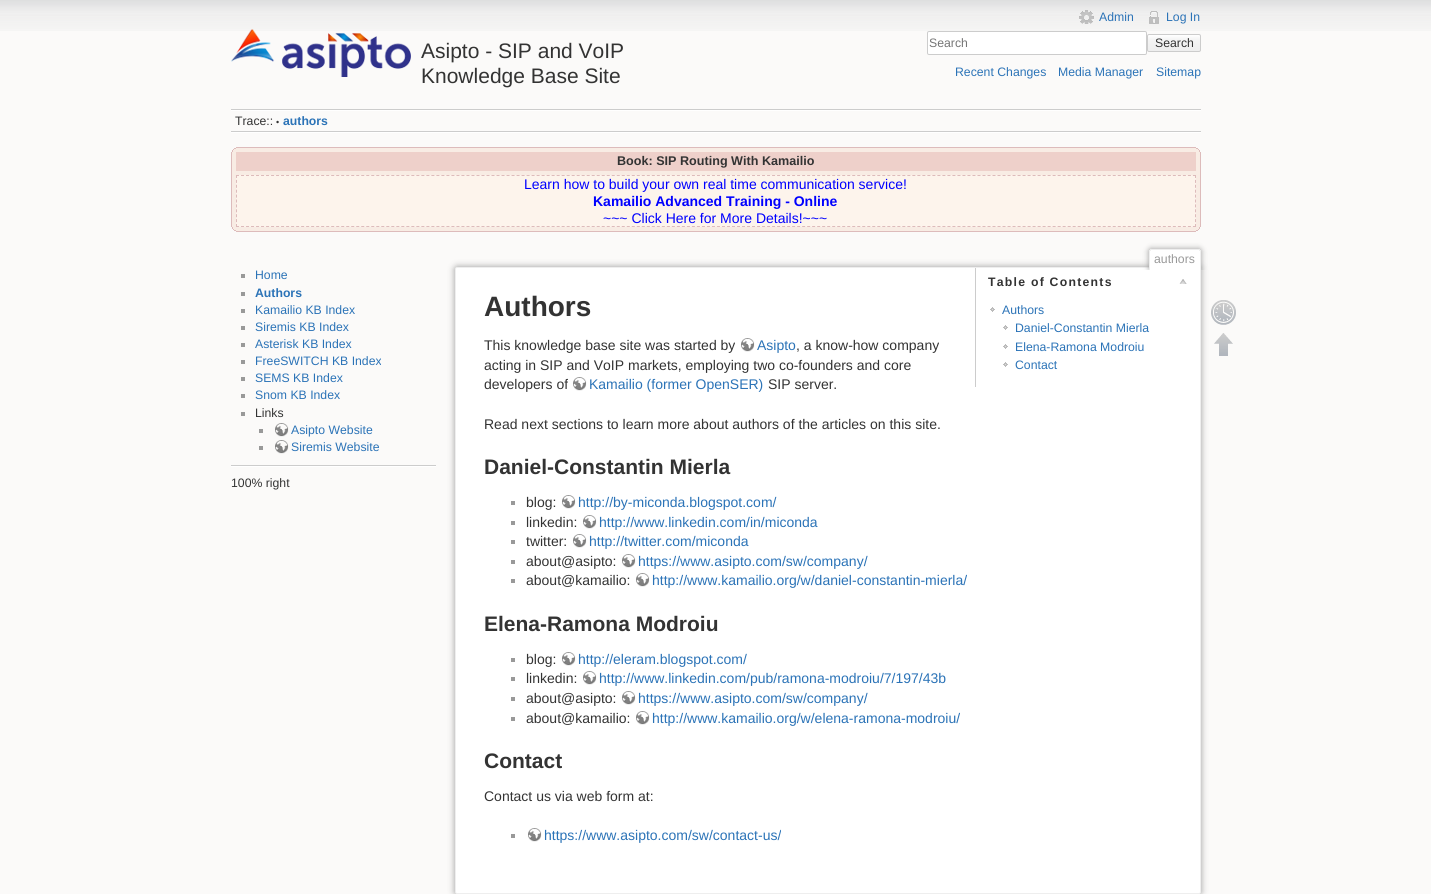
import math
import cairo

surface = cairo.ImageSurface(cairo.FORMAT_RGB24, 1431, 894)
cr = cairo.Context(surface)
options = cairo.FontOptions()
options.set_hint_metrics(cairo.HINT_METRICS_OFF)
options.set_hint_style(cairo.HINT_STYLE_NONE)
cr.set_font_options(options)
cr.set_miter_limit(4)


def rgb(code):
    cr.set_source_rgb(*(v / 255 for v in bytes.fromhex(code[-6:])))


def tracked(x, y, s, letter, word):
    cr.move_to(x, y)
    for ch in s:
        cr.show_text(ch)
        cr.rel_move_to(letter + word * (ch == ' '), 0)


def rrect(x, y, w, h, r):
    cr.new_sub_path()
    for i, (u, v) in enumerate([(x + w - r, y + h - r), (x + r, y + h - r), (x + r, y + r), (x + w - r, y + r)]):
        cr.arc(u, v, r, i * math.pi / 2, (i + 1) * math.pi / 2)
    cr.close_path()


def soft_shadow(x, y, w, h, r, blur, alpha):
    cr.push_group_with_content(cairo.CONTENT_ALPHA)
    cr.set_operator(cairo.OPERATOR_SOURCE)
    for i in range(15, -16, -2):
        e = blur * i / 6
        if min(w, h) + 2 * e > 0:
            cr.set_source_rgba(0, 0, 0, alpha * math.erfc((i - 1) / 8.5) / 2)
            rrect(x - e, y - e, w + 2 * e, h + 2 * e, max(0, min(r + e + blur * .6, min(w, h) / 2 + e)))
            cr.fill()
    cr.mask(cr.pop_group())


def image(path, x, y, w, h):
    cr.save()
    cr.set_source_surface(cairo.ImageSurface.create_from_png(path), x, y)
    cr.rectangle(x, y, w, h)
    cr.fill()
    cr.restore()


rgb("#fbfaf9")
cr.paint()
image("img/1.png", 0, 0, 1431, 31)
image("img/2.png", 231, 29, 180, 48)
image("img/3.png", 1079, 10, 15, 14)
image("img/4.png", 1149, 11, 10, 13)
rgb("#ffffff")
rrect(927.5, 31.5, 219, 23, 1.5)
cr.fill_preserve()
rgb("#cccccc")
cr.set_line_width(1)
cr.stroke()
cr.save()
rrect(1147, 34, 54, 18, 2)
cr.clip()
gradient = cairo.LinearGradient(1174, 35, 1174, 51)
gradient.add_color_stop_rgba(0, 1, 1, 1, 1)
gradient.add_color_stop_rgba(0.3, 0.957, 0.957, 0.957, 1)
gradient.add_color_stop_rgba(0.99, 0.933, 0.933, 0.933, 1)
gradient.add_color_stop_rgba(0.99, 0.8, 0.8, 0.8, 1)
cr.set_source(gradient)
cr.rectangle(1147, 35, 54, 16)
cr.fill()
cr.restore()
rrect(1147.5, 34.5, 53, 17, 1.5)
cr.stroke()
for x, y, w, h, color in [
    (231, 109, 970, 1, "#cccccc"),
    (231, 132, 970, 1, "#ffffff"),
    (231, 110, 970, 1, "#ffffff"),
    (231, 131, 970, 1, "#cccccc"),
    (236, 147, 960, 1, "#ddbbbb"),
    (236, 148, 960, 1, "#f8ece4"),
    (1196, 148, 2, 1, "#ddbbbb"),
    (234, 148, 2, 1, "#ddbbbb"),
    (234, 149, 964, 1, "#f8ece4"),
    (1198, 149, 1, 1, "#ddbbbb"),
    (233, 149, 1, 1, "#ddbbbb"),
    (233, 150, 966, 2, "#f8ece4"),
    (1199, 150, 1, 2, "#ddbbbb"),
    (232, 150, 1, 2, "#ddbbbb"),
    (232, 152, 968, 75, "#f8ece4"),
    (1200, 152, 1, 75, "#ddbbbb"),
    (231, 152, 1, 75, "#ddbbbb"),
    (236, 152, 960, 19, "#eed0ca"),
    (236, 175, 960, 52, "#fdf4ec"),
]:
    rgb(color)
    cr.rectangle(x, y, w, h)
    cr.fill()
cr.new_path()
cr.move_to(236, 175.5)
cr.line_to(1196, 175.5)
rgb("#ddbbbb")
cr.set_dash([3, 2.01])
cr.stroke()
cr.new_path()
cr.move_to(1195.5, 175)
cr.line_to(1195.5, 227)
cr.set_dash([3, 1.9])
cr.stroke()
cr.new_path()
cr.move_to(236, 226.5)
cr.line_to(1196, 226.5)
cr.set_dash([3, 2.01])
cr.stroke()
cr.new_path()
cr.move_to(236.5, 175)
cr.line_to(236.5, 227)
cr.set_dash([3, 1.9])
cr.stroke()
for x, y, w, h, color in [
    (233, 227, 966, 2, "#f8ece4"),
    (1199, 227, 1, 2, "#ddbbbb"),
    (232, 227, 1, 2, "#ddbbbb"),
    (234, 229, 964, 1, "#f8ece4"),
    (1198, 229, 1, 1, "#ddbbbb"),
    (233, 229, 1, 1, "#ddbbbb"),
    (236, 230, 960, 1, "#f8ece4"),
    (1196, 230, 2, 1, "#ddbbbb"),
    (234, 230, 2, 1, "#ddbbbb"),
    (236, 231, 960, 1, "#ddbbbb"),
    (241, 274, 4, 4, "#999999"),
    (241, 292, 4, 4, "#999999"),
    (241, 309, 4, 4, "#999999"),
    (241, 326, 4, 4, "#999999"),
    (241, 343, 4, 4, "#999999"),
    (241, 360, 4, 4, "#999999"),
    (241, 377, 4, 4, "#999999"),
    (241, 394, 4, 4, "#999999"),
    (241, 412, 4, 4, "#999999"),
    (259, 429, 4, 4, "#999999"),
]:
    rgb(color)
    cr.rectangle(x, y, w, h)
    cr.fill()
image("img/5.png", 275, 423, 14, 14)
cr.rectangle(259, 446, 4, 4)
cr.fill()
image("img/5.png", 275, 440, 14, 14)
rgb("#cccccc")
cr.rectangle(231, 465, 205, 1)
cr.fill()
rgb("#ffffff")
cr.rectangle(231, 466, 205, 1)
cr.fill()
rgb("#999999")
soft_shadow(455, 267, 746, 627, 2, 3.5, 1)
rgb("#ffffff")
rrect(455.5, 267.5, 745, 626, 1.5)
cr.fill_preserve()
rgb("#eeeeee")
cr.set_dash([])
cr.stroke()
rgb("#ffffff")
cr.rectangle(1199, 268, 1, 1)
cr.fill()
image("img/6.png", 1179, 279, 8, 5)
cr.save()
cr.rectangle(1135, 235, 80, 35)
cr.clip()
rgb("#999999")
soft_shadow(1149, 249, 52, 21, 2, 3, 1)
cr.restore()
cr.new_path()
cr.move_to(1151, 250)
cr.line_to(1199, 250)
cr.curve_to(1199.5, 250, 1200, 250.5, 1200, 251)
cr.line_to(1200, 270)
cr.line_to(1150, 270)
cr.line_to(1150, 251)
cr.curve_to(1150, 250.5, 1150.5, 250, 1151, 250)
cr.close_path()
cr.fill()
for x, y, w, h, color in [
    (1150, 249, 50, 1, "#eeeeee"),
    (1200, 250, 1, 20, "#eeeeee"),
    (1149, 250, 1, 20, "#eeeeee"),
    (975, 268, 1, 119, "#cccccc"),
]:
    rgb(color)
    cr.rectangle(x, y, w, h)
    cr.fill()
image("img/7.png", 990, 307, 5, 5)
image("img/7.png", 1003, 325, 5, 5)
image("img/7.png", 1003, 344, 5, 5)
image("img/7.png", 1003, 362, 5, 5)
image("img/8.png", 741, 338, 14, 14)
image("img/8.png", 573, 377, 14, 14)
rgb("#999999")
cr.rectangle(511, 501, 4, 4)
cr.fill()
image("img/8.png", 562, 495, 14, 14)
cr.rectangle(511, 521, 4, 4)
cr.fill()
image("img/8.png", 583, 515, 14, 14)
cr.rectangle(511, 540, 4, 4)
cr.fill()
image("img/8.png", 573, 534, 14, 14)
cr.rectangle(511, 560, 4, 4)
cr.fill()
image("img/8.png", 622, 554, 14, 14)
cr.rectangle(511, 579, 4, 4)
cr.fill()
image("img/8.png", 636, 573, 14, 14)
cr.rectangle(511, 658, 4, 4)
cr.fill()
image("img/8.png", 562, 652, 14, 14)
cr.rectangle(511, 677, 4, 4)
cr.fill()
image("img/8.png", 583, 671, 14, 14)
cr.rectangle(511, 697, 4, 4)
cr.fill()
image("img/8.png", 622, 691, 14, 14)
cr.rectangle(511, 717, 4, 4)
cr.fill()
image("img/8.png", 636, 711, 14, 14)
cr.rectangle(511, 834, 4, 4)
cr.fill()
image("img/8.png", 528, 828, 14, 14)
image("img/9.png", 1211, 300, 25, 25)
image("img/10.png", 1214, 333, 19, 23)
cr.select_font_face("Liberation Sans")
cr.set_font_size(21)
rgb("#333333")
cr.move_to(421, 58)
cr.show_text("Asipto - SIP and VoIP")
cr.move_to(421, 83)
cr.show_text("Knowledge Base Site")
cr.set_font_size(12.25)
rgb("#2b73b7")
cr.move_to(1099, 21)
cr.show_text("Admin")
cr.move_to(1166, 21)
cr.show_text("Log In")
rgb("#757575")
cr.move_to(929, 47)
cr.show_text("Search")
rgb("#333333")
cr.move_to(1155, 47)
cr.show_text("Search")
rgb("#2b73b7")
for x, y, s in [
    (955, 76, "Recent Changes"),
    (1058, 76, "Media Manager"),
    (1156, 76, "Sitemap"),
]:
    cr.move_to(x, y)
    cr.show_text(s)
rgb("#333333")
cr.move_to(235, 125)
cr.show_text("Trace::")
cr.set_font_size(9)
cr.move_to(276, 125)
cr.show_text("•")
cr.select_font_face("Liberation Sans", cairo.FONT_SLANT_NORMAL, cairo.FONT_WEIGHT_BOLD)
cr.set_font_size(12.25)
rgb("#2b73b7")
cr.move_to(283, 125)
cr.show_text("authors")
cr.set_font_size(12.6)
rgb("#333333")
cr.move_to(617, 165)
cr.show_text("Book: SIP Routing With Kamailio")
cr.select_font_face("Liberation Sans")
cr.set_font_size(14)
rgb("#0000ff")
cr.move_to(524, 189)
cr.show_text("Learn how to build your own real time communication service!")
cr.select_font_face("Liberation Sans", cairo.FONT_SLANT_NORMAL, cairo.FONT_WEIGHT_BOLD)
cr.move_to(593, 206)
cr.show_text("Kamailio Advanced Training - Online")
cr.select_font_face("Liberation Sans")
cr.move_to(603, 223)
cr.show_text("~~~ Click Here for More Details!~~~")
cr.set_font_size(12.25)
rgb("#2b73b7")
cr.move_to(255, 279)
cr.show_text("Home")
cr.select_font_face("Liberation Sans", cairo.FONT_SLANT_NORMAL, cairo.FONT_WEIGHT_BOLD)
cr.move_to(255, 297)
cr.show_text("Authors")
cr.select_font_face("Liberation Sans")
for x, y, s in [
    (255, 314, "Kamailio KB Index"),
    (255, 331, "Siremis KB Index"),
    (255, 348, "Asterisk KB Index"),
    (255, 365, "FreeSWITCH KB Index"),
    (255, 382, "SEMS KB Index"),
    (255, 399, "Snom KB Index"),
]:
    cr.move_to(x, y)
    cr.show_text(s)
rgb("#333333")
cr.move_to(255, 417)
cr.show_text("Links")
rgb("#2b73b7")
cr.move_to(291, 434)
cr.show_text("Asipto Website")
cr.move_to(291, 451)
cr.show_text("Siremis Website")
rgb("#333333")
cr.move_to(231, 487)
cr.show_text("100% right")
rgb("#999999")
cr.move_to(1154, 263)
cr.show_text("authors")
cr.select_font_face("Liberation Sans", cairo.FONT_SLANT_NORMAL, cairo.FONT_WEIGHT_BOLD)
cr.set_font_size(28)
rgb("#333333")
cr.move_to(484, 316)
cr.show_text("Authors")
cr.set_font_size(12.25)
tracked(988, 286, "Table of Contents", 1.25, 0)
cr.select_font_face("Liberation Sans")
rgb("#2b73b7")
for x, y, s in [
    (1002, 314, "Authors"),
    (1015, 332, "Daniel-Constantin Mierla"),
    (1015, 351, "Elena-Ramona Modroiu"),
    (1015, 369, "Contact"),
]:
    cr.move_to(x, y)
    cr.show_text(s)
cr.set_font_size(14)
rgb("#333333")
cr.move_to(484, 350)
cr.show_text("This knowledge base site was started by")
rgb("#2b73b7")
cr.move_to(757, 350)
cr.show_text("Asipto")
rgb("#333333")
for x, y, s in [
    (796, 350, ", a know-how company"),
    (484, 370, "acting in SIP and VoIP markets, employing two co-founders and core"),
    (484, 389, "developers of"),
]:
    cr.move_to(x, y)
    cr.show_text(s)
rgb("#2b73b7")
cr.move_to(589, 389)
cr.show_text("Kamailio (former OpenSER)")
rgb("#333333")
cr.move_to(768, 389)
cr.show_text("SIP server.")
cr.move_to(484, 429)
cr.show_text("Read next sections to learn more about authors of the articles on this site.")
cr.select_font_face("Liberation Sans", cairo.FONT_SLANT_NORMAL, cairo.FONT_WEIGHT_BOLD)
cr.set_font_size(21)
cr.move_to(484, 474)
cr.show_text("Daniel-Constantin Mierla")
cr.select_font_face("Liberation Sans")
cr.set_font_size(14)
cr.move_to(526, 507)
cr.show_text("blog:")
rgb("#2b73b7")
cr.move_to(578, 507)
cr.show_text("http://by-miconda.blogspot.com/")
rgb("#333333")
cr.move_to(526, 527)
cr.show_text("linkedin:")
rgb("#2b73b7")
cr.move_to(599, 527)
cr.show_text("http://www.linkedin.com/in/miconda")
rgb("#333333")
cr.move_to(526, 546)
cr.show_text("twitter:")
rgb("#2b73b7")
cr.move_to(589, 546)
cr.show_text("http://twitter.com/miconda")
rgb("#333333")
cr.move_to(526, 566)
cr.show_text("about@asipto:")
rgb("#2b73b7")
cr.move_to(638, 566)
cr.show_text("https://www.asipto.com/sw/company/")
rgb("#333333")
cr.move_to(526, 585)
cr.show_text("about@kamailio:")
rgb("#2b73b7")
cr.move_to(652, 585)
cr.show_text("http://www.kamailio.org/w/daniel-constantin-mierla/")
cr.select_font_face("Liberation Sans", cairo.FONT_SLANT_NORMAL, cairo.FONT_WEIGHT_BOLD)
cr.set_font_size(21)
rgb("#333333")
cr.move_to(484, 631)
cr.show_text("Elena-Ramona Modroiu")
cr.select_font_face("Liberation Sans")
cr.set_font_size(14)
cr.move_to(526, 664)
cr.show_text("blog:")
rgb("#2b73b7")
cr.move_to(578, 664)
cr.show_text("http://eleram.blogspot.com/")
rgb("#333333")
cr.move_to(526, 683)
cr.show_text("linkedin:")
rgb("#2b73b7")
cr.move_to(599, 683)
cr.show_text("http://www.linkedin.com/pub/ramona-modroiu/7/197/43b")
rgb("#333333")
cr.move_to(526, 703)
cr.show_text("about@asipto:")
rgb("#2b73b7")
cr.move_to(638, 703)
cr.show_text("https://www.asipto.com/sw/company/")
rgb("#333333")
cr.move_to(526, 723)
cr.show_text("about@kamailio:")
rgb("#2b73b7")
cr.move_to(652, 723)
cr.show_text("http://www.kamailio.org/w/elena-ramona-modroiu/")
cr.select_font_face("Liberation Sans", cairo.FONT_SLANT_NORMAL, cairo.FONT_WEIGHT_BOLD)
cr.set_font_size(21)
rgb("#333333")
cr.move_to(484, 768)
cr.show_text("Contact")
cr.select_font_face("Liberation Sans")
cr.set_font_size(14)
cr.move_to(484, 801)
cr.show_text("Contact us via web form at:")
rgb("#2b73b7")
cr.move_to(544, 840)
cr.show_text("https://www.asipto.com/sw/contact-us/")
surface.write_to_png("page.png")
